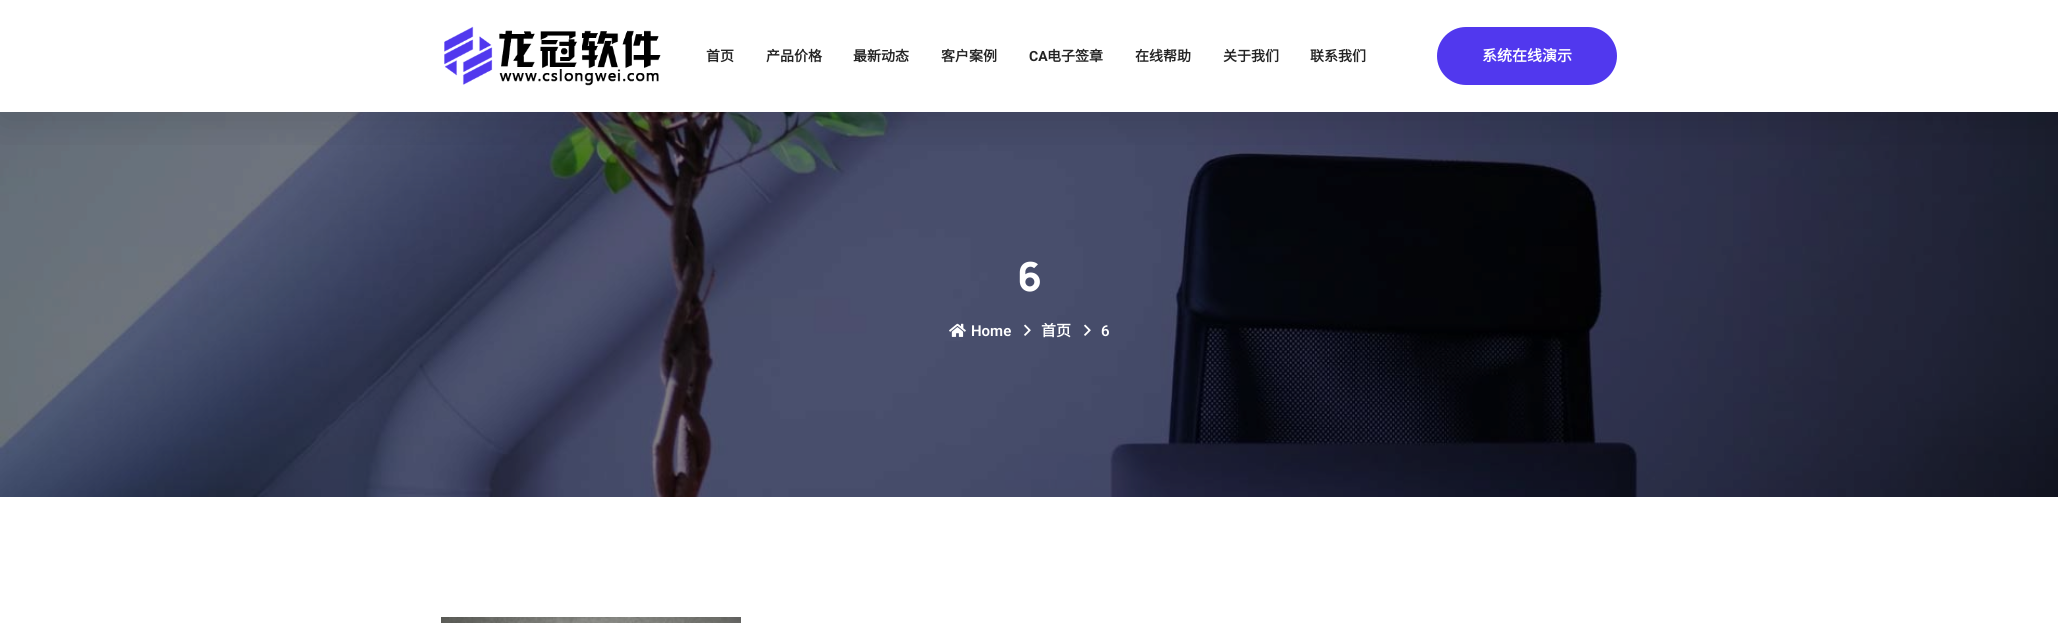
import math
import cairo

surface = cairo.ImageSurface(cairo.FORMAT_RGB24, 2058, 623)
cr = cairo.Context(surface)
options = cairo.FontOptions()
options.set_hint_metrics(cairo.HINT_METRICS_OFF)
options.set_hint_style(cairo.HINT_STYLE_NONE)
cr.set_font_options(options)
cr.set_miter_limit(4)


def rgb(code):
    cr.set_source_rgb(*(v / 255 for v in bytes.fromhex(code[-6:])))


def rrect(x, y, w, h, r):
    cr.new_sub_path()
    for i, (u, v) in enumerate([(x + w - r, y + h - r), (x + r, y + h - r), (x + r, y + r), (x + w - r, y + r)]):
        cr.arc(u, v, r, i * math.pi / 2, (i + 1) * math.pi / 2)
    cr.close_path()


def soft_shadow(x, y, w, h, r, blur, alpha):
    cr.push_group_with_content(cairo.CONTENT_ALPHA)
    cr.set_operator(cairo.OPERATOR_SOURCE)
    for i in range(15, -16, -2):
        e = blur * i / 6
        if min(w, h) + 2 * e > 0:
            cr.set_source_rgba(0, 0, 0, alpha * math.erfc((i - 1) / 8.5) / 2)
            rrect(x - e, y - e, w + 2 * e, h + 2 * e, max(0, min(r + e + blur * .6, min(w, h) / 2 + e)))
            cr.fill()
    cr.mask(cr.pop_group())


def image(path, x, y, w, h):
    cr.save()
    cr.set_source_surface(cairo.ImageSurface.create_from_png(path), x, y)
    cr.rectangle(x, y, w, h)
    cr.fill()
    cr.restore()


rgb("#ffffff")
cr.paint()
image("img/2.png", 0, 112, 2058, 385)
cr.save()
cr.rectangle(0, 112, 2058, 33)
cr.clip()
rgb("#000000")
soft_shadow(0, 5, 2058, 112, 0, 25, 0.15)
cr.restore()
image("img/1.png", 444, 26, 217, 60)
rgb("#5138ee")
rrect(1437, 27, 180, 58, 29)
cr.fill()
image("img/3.png", 949, 323, 17, 14)
image("img/4.png", 1024, 324, 7, 12)
image("img/5.png", 1084, 324, 7, 12)
image("img/6.png", 441, 617, 300, 6)
cr.select_font_face("Noto Sans CJK SC", cairo.FONT_SLANT_NORMAL, cairo.FONT_WEIGHT_BOLD)
cr.set_font_size(14)
rgb("#232323")
for x, y, s in [
    (706, 61, "首页"),
    (766, 61, "产品价格"),
    (853, 61, "最新动态"),
    (941, 61, "客户案例"),
]:
    cr.move_to(x, y)
    cr.show_text(s)
cr.select_font_face("Roboto", cairo.FONT_SLANT_NORMAL, cairo.FONT_WEIGHT_BOLD)
cr.move_to(1029, 61)
cr.show_text("CA")
cr.select_font_face("Noto Sans CJK SC", cairo.FONT_SLANT_NORMAL, cairo.FONT_WEIGHT_BOLD)
for x, y, s in [
    (1047, 61, "电子签章"),
    (1135, 61, "在线帮助"),
    (1223, 61, "关于我们"),
    (1310, 61, "联系我们"),
]:
    cr.move_to(x, y)
    cr.show_text(s)
cr.set_font_size(15)
rgb("#ffffff")
cr.move_to(1482, 61)
cr.show_text("系统在线演示")
cr.select_font_face("Manrope ExtraBold")
cr.set_font_size(40)
cr.move_to(1017, 291)
cr.show_text("6")
cr.select_font_face("Roboto SemiBold")
cr.set_font_size(15)
cr.move_to(971, 336)
cr.show_text("Home")
cr.select_font_face("Noto Sans CJK SC", cairo.FONT_SLANT_NORMAL, cairo.FONT_WEIGHT_BOLD)
cr.move_to(1041, 336)
cr.show_text("首页")
cr.select_font_face("Roboto SemiBold")
cr.move_to(1101, 336)
cr.show_text("6")
surface.write_to_png("page.png")
